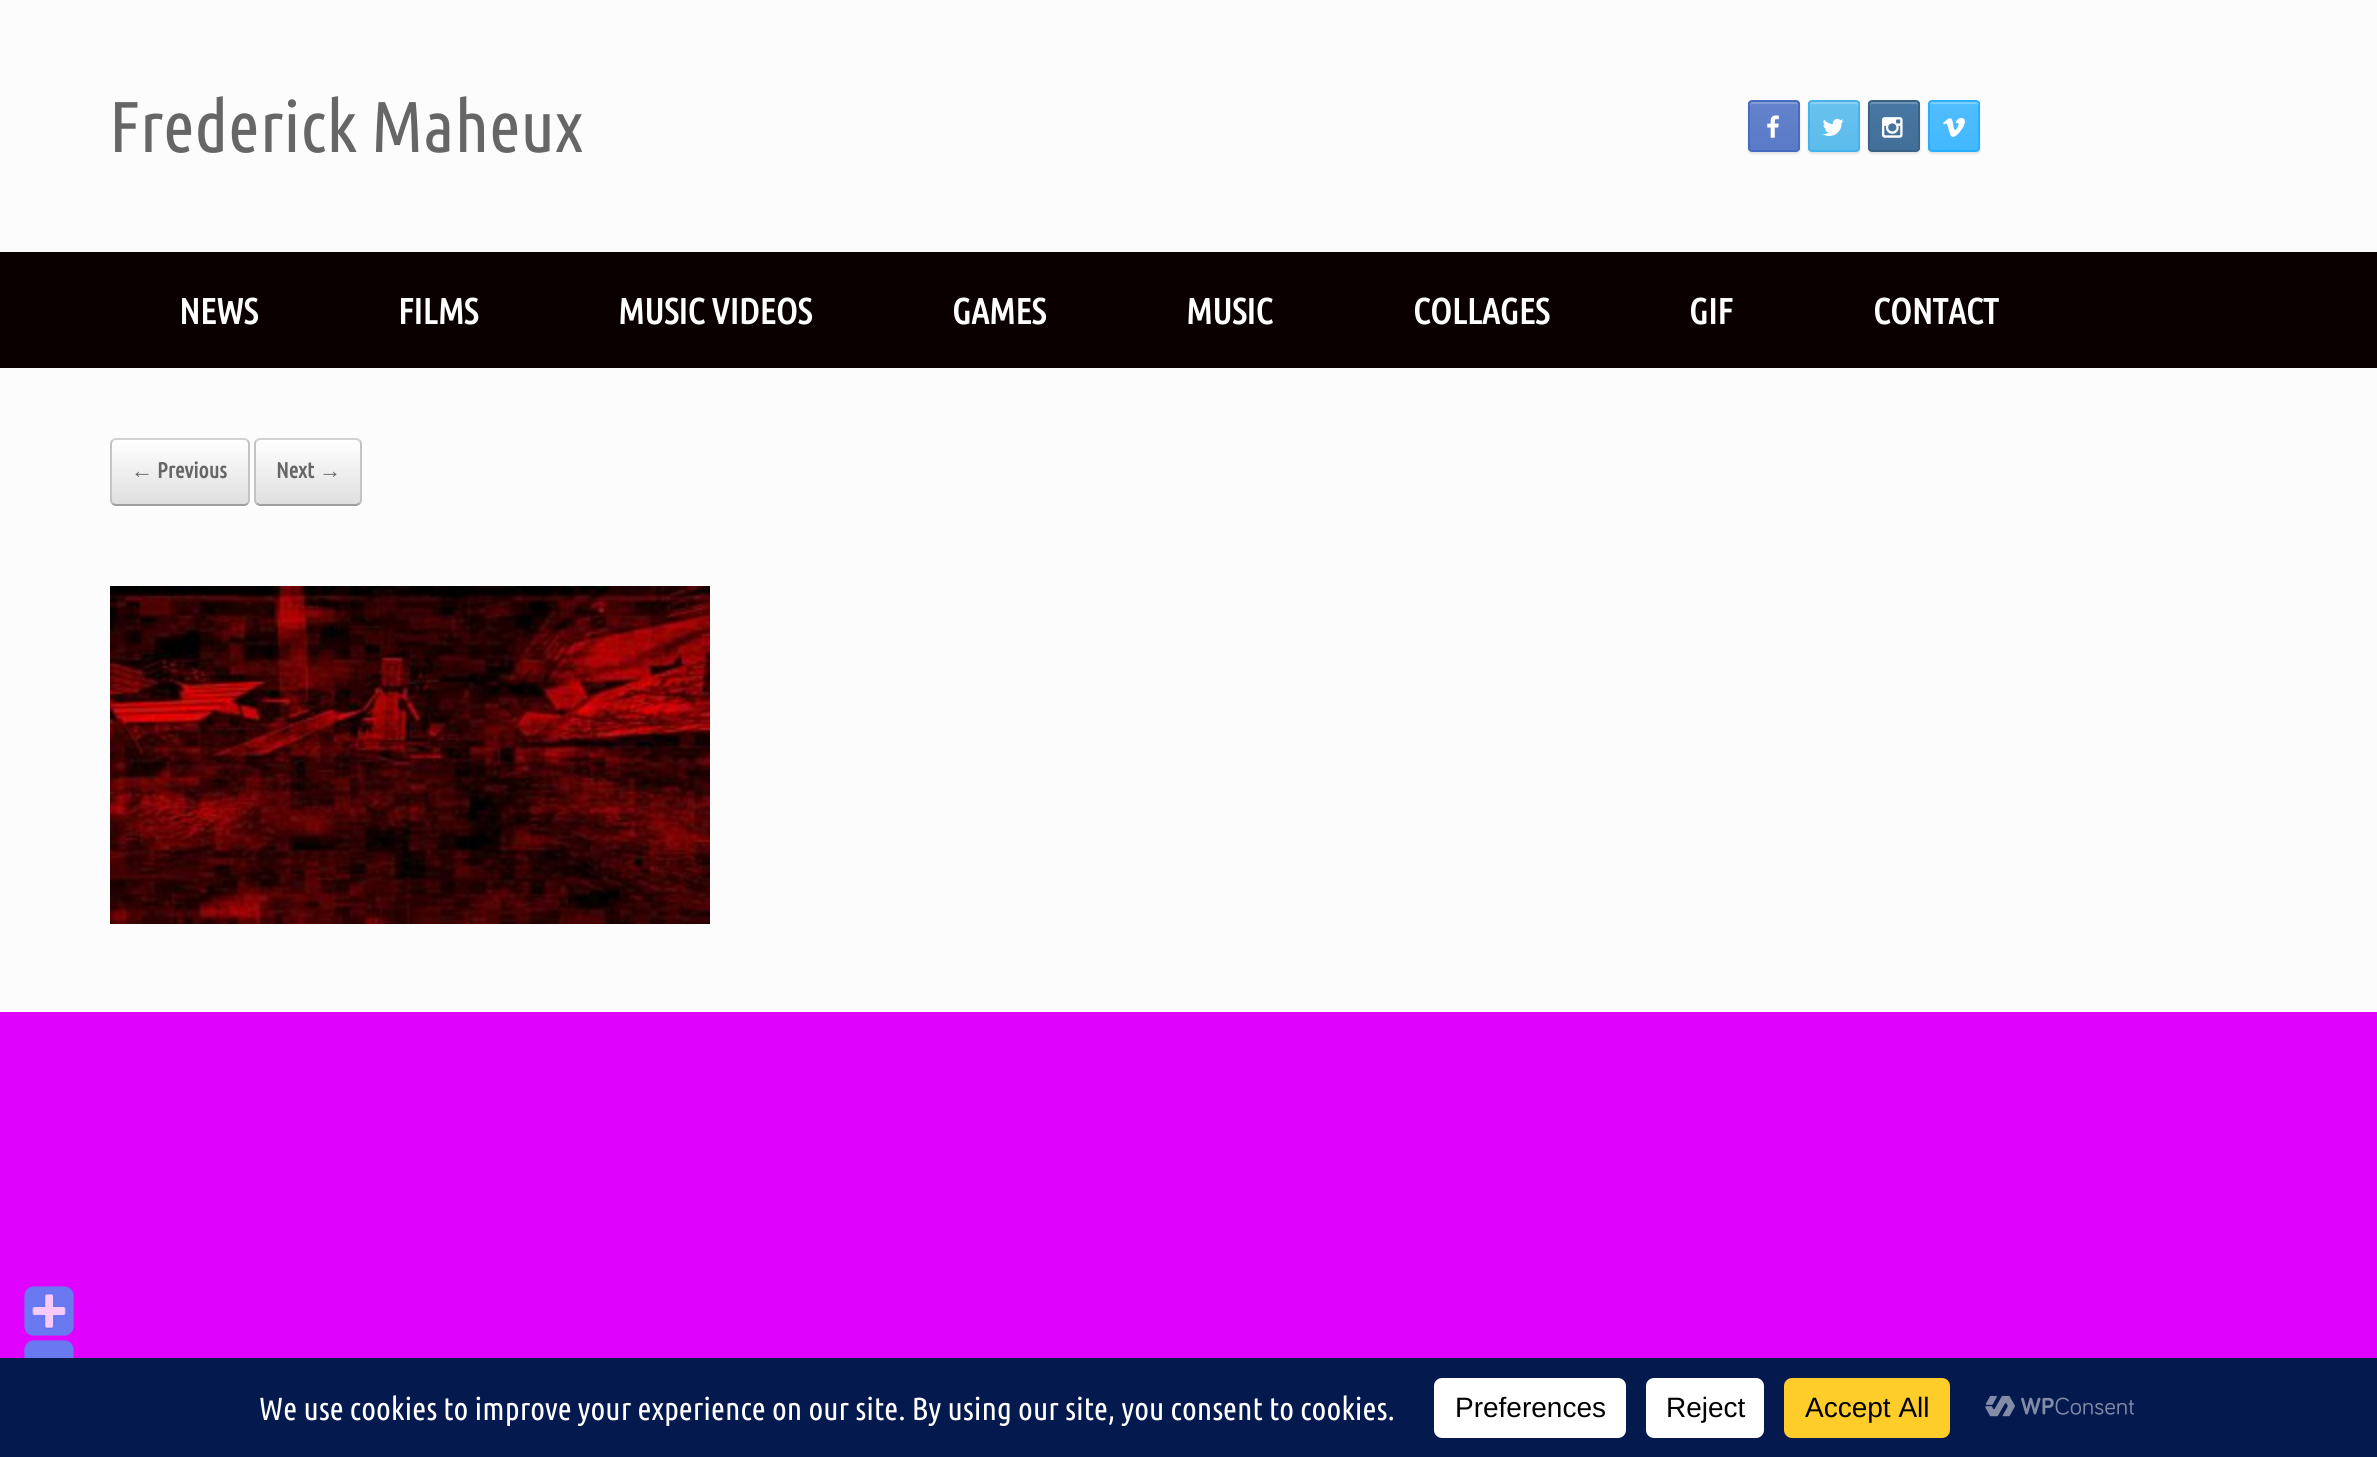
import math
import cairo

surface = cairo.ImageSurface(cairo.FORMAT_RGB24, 2377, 1457)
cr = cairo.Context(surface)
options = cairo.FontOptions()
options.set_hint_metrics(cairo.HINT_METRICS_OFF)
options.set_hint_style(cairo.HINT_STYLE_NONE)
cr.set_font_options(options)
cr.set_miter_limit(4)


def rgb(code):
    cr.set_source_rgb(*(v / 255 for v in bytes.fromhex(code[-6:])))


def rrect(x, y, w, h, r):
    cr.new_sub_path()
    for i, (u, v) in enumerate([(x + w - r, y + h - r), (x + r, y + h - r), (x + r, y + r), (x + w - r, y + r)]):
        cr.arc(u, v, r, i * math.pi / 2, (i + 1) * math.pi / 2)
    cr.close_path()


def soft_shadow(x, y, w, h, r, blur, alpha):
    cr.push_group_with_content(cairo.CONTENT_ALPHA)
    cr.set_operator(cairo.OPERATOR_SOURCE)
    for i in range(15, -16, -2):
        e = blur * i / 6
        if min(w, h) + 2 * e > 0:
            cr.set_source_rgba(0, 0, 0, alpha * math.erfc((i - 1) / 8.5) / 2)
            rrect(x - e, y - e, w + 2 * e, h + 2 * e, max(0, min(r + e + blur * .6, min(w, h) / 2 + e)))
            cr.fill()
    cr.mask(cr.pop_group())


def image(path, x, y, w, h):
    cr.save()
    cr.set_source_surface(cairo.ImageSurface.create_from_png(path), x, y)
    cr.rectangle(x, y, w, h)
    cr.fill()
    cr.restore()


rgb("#df02fc")
cr.paint()
rgb("#fcfcfc")
cr.rectangle(0, 0, 2377, 252)
cr.fill()
rgb("#000000")
soft_shadow(1748, 102, 52, 52, 4, 1, 0.1)
cr.save()
rrect(1748, 100, 52, 52, 4)
cr.clip()
gradient = cairo.LinearGradient(1750, 150, 1750, 102)
gradient.add_color_stop_rgba(0, 0.349, 0.478, 0.78, 1)
gradient.add_color_stop_rgba(1, 0.392, 0.514, 0.796, 1)
cr.set_source(gradient)
cr.rectangle(1748, 102, 52, 48)
cr.fill()
cr.restore()
rgb("#839cd5")
cr.new_path()
cr.move_to(1752, 104)
cr.line_to(1796, 104)
cr.curve_to(1797, 104, 1798, 105, 1798, 106)
cr.curve_to(1798, 100, 1795, 102, 1789, 102)
cr.line_to(1759, 102)
cr.curve_to(1753, 102, 1750, 100, 1750, 106)
cr.curve_to(1750, 105, 1751, 104, 1752, 104)
cr.close_path()
cr.fill()
rrect(1749, 101, 50, 50, 3)
rgb("#466bc1")
cr.stroke()
image("img/1.png", 1767, 115, 12, 23)
rgb("#000000")
soft_shadow(1808, 102, 52, 52, 4, 1, 0.1)
cr.save()
rrect(1808, 100, 52, 52, 4)
cr.clip()
gradient = cairo.LinearGradient(1810, 150, 1810, 102)
gradient.add_color_stop_rgba(0, 0.357, 0.737, 0.925, 1)
gradient.add_color_stop_rgba(1, 0.412, 0.761, 0.933, 1)
cr.set_source(gradient)
cr.rectangle(1808, 102, 52, 48)
cr.fill()
cr.restore()
rgb("#8ed1f2")
cr.new_path()
cr.move_to(1812, 104)
cr.line_to(1856, 104)
cr.curve_to(1857, 104, 1858, 105, 1858, 106)
cr.curve_to(1858, 100, 1855, 102, 1849, 102)
cr.line_to(1819, 102)
cr.curve_to(1813, 102, 1810, 100, 1810, 106)
cr.curve_to(1810, 105, 1811, 104, 1812, 104)
cr.close_path()
cr.fill()
rrect(1809, 101, 50, 50, 3)
rgb("#44b3e9")
cr.stroke()
image("img/2.png", 1822, 118, 22, 18)
rgb("#000000")
soft_shadow(1868, 102, 52, 52, 4, 1, 0.1)
cr.save()
rrect(1868, 100, 52, 52, 4)
cr.clip()
gradient = cairo.LinearGradient(1870, 150, 1870, 102)
gradient.add_color_stop_rgba(0, 0.259, 0.435, 0.596, 1)
gradient.add_color_stop_rgba(1, 0.278, 0.467, 0.639, 1)
cr.set_source(gradient)
cr.rectangle(1868, 102, 52, 48)
cr.fill()
cr.restore()
rgb("#6c92b5")
cr.new_path()
cr.move_to(1872, 104)
cr.line_to(1916, 104)
cr.curve_to(1917, 104, 1918, 105, 1918, 106)
cr.curve_to(1918, 100, 1915, 102, 1909, 102)
cr.line_to(1879, 102)
cr.curve_to(1873, 102, 1870, 100, 1870, 106)
cr.curve_to(1870, 105, 1871, 104, 1872, 104)
cr.close_path()
cr.fill()
rrect(1869, 101, 50, 50, 3)
rgb("#3a6286")
cr.stroke()
image("img/3.png", 1882, 117, 21, 21)
rgb("#000000")
soft_shadow(1928, 102, 52, 52, 4, 1, 0.1)
cr.save()
rrect(1928, 100, 52, 52, 4)
cr.clip()
gradient = cairo.LinearGradient(1930, 150, 1930, 102)
gradient.add_color_stop_rgba(0, 0.259, 0.722, 1, 1)
gradient.add_color_stop_rgba(1, 0.318, 0.745, 1, 1)
cr.set_source(gradient)
cr.rectangle(1928, 102, 52, 48)
cr.fill()
cr.restore()
rgb("#7cceff")
cr.new_path()
cr.move_to(1932, 104)
cr.line_to(1976, 104)
cr.curve_to(1977, 104, 1978, 105, 1978, 106)
cr.curve_to(1978, 100, 1975, 102, 1969, 102)
cr.line_to(1939, 102)
cr.curve_to(1933, 102, 1930, 100, 1930, 106)
cr.curve_to(1930, 105, 1931, 104, 1932, 104)
cr.close_path()
cr.fill()
rrect(1929, 101, 50, 50, 3)
rgb("#28aeff")
cr.stroke()
image("img/4.png", 1943, 118, 22, 19)
rgb("#0a0000")
cr.rectangle(0, 252, 2377, 116)
cr.fill()
rgb("#fcfcfc")
cr.rectangle(0, 368, 2377, 644)
cr.fill()
cr.save()
rrect(110, 438, 140, 68, 6)
cr.clip()
gradient = cairo.LinearGradient(112, 504, 112, 440)
gradient.add_color_stop_rgba(0, 0.875, 0.875, 0.875, 1)
gradient.add_color_stop_rgba(1, 1, 1, 1, 1)
cr.set_source(gradient)
cr.rectangle(110, 440, 140, 64)
cr.fill()
cr.restore()
cr.new_path()
cr.move_to(112.5, 440.5)
cr.curve_to(113.5, 439.5, 114.5, 439, 116, 439)
cr.line_to(244, 439)
cr.curve_to(245.5, 439, 246.5, 439.5, 247.5, 440.5)
rgb("#d2d2d2")
cr.stroke()
cr.new_path()
cr.move_to(247.5, 440.5)
cr.curve_to(248.5, 441.5, 249, 442.5, 249, 444)
cr.line_to(249, 500)
cr.curve_to(249, 501.5, 248.5, 502.5, 247.5, 503.5)
rgb("#c3c3c3")
cr.stroke()
cr.new_path()
cr.move_to(247.5, 503.5)
cr.curve_to(246.5, 504.5, 245.5, 505, 244, 505)
cr.line_to(116, 505)
cr.curve_to(114.5, 505, 113.5, 504.5, 112.5, 503.5)
rgb("#9f9f9f")
cr.stroke()
cr.new_path()
cr.move_to(112.5, 503.5)
cr.curve_to(111.5, 502.5, 111, 501.5, 111, 500)
cr.line_to(111, 444)
cr.curve_to(111, 442.5, 111.5, 441.5, 112.5, 440.5)
rgb("#c3c3c3")
cr.stroke()
cr.save()
rrect(254, 438, 108, 68, 6)
cr.clip()
gradient = cairo.LinearGradient(256, 440, 256, 376)
gradient.add_color_stop_rgba(0, 0.875, 0.875, 0.875, 1)
gradient.add_color_stop_rgba(1, 1, 1, 1, 1)
cr.set_source(gradient)
cr.rectangle(254, 438, 108, 2)
cr.fill()
gradient = cairo.LinearGradient(256, 504, 256, 440)
gradient.add_color_stop_rgba(0, 0.875, 0.875, 0.875, 1)
gradient.add_color_stop_rgba(1, 1, 1, 1, 1)
cr.set_source(gradient)
cr.rectangle(254, 440, 108, 64)
cr.fill()
gradient = cairo.LinearGradient(256, 568, 256, 504)
gradient.add_color_stop_rgba(0, 0.875, 0.875, 0.875, 1)
gradient.add_color_stop_rgba(1, 1, 1, 1, 1)
cr.set_source(gradient)
cr.rectangle(254, 504, 108, 2)
cr.fill()
cr.restore()
cr.new_path()
cr.move_to(256.5, 440.5)
cr.line_to(259.5, 439)
cr.line_to(356.5, 439)
cr.line_to(359.5, 440.5)
rgb("#d2d2d2")
cr.stroke()
cr.new_path()
cr.move_to(359.5, 440.5)
cr.curve_to(360.5, 441.5, 361, 442.5, 361, 444)
cr.line_to(361, 500)
cr.curve_to(361, 501.5, 360.5, 502.5, 359.5, 503.5)
rgb("#c3c3c3")
cr.stroke()
cr.new_path()
cr.move_to(359.5, 503.5)
cr.line_to(356.5, 505)
cr.line_to(259.5, 505)
cr.line_to(256.5, 503.5)
rgb("#9f9f9f")
cr.stroke()
cr.new_path()
cr.move_to(256.5, 503.5)
cr.curve_to(255.5, 502.5, 255, 501.5, 255, 500)
cr.line_to(255, 444)
cr.curve_to(255, 442.5, 255.5, 441.5, 256.5, 440.5)
rgb("#c3c3c3")
cr.stroke()
image("img/5.png", 110, 586, 600, 338)
image("img/6.png", 24, 1286, 50, 50)
image("img/7.png", 24, 1340, 50, 18)
rgb("#04194e")
cr.rectangle(0, 1358, 2377, 99)
cr.fill()
rgb("#ffffff")
rrect(1434, 1378, 192, 60, 8)
cr.fill()
rrect(1646, 1378, 118, 60, 8)
cr.fill()
rgb("#ffcd2a")
rrect(1784, 1378, 166, 60, 8)
cr.fill()
image("img/8.png", 1985, 1395, 149, 22)
cr.select_font_face("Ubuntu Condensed")
cr.set_font_size(72)
rgb("#666666")
cr.move_to(109, 152)
cr.show_text("Frederick Maheux")
cr.select_font_face("Ubuntu Condensed", cairo.FONT_SLANT_NORMAL, cairo.FONT_WEIGHT_BOLD)
cr.set_font_size(36)
rgb("#ffffff")
for x, y, s in [
    (179, 324, "NEWS"),
    (398, 324, "FILMS"),
    (618, 324, "MUSIC VIDEOS"),
    (952, 324, "GAMES"),
    (1186, 324, "MUSIC"),
    (1413, 324, "COLLAGES"),
    (1689, 324, "GIF"),
    (1873, 324, "CONTACT"),
]:
    cr.move_to(x, y)
    cr.show_text(s)
cr.select_font_face("Liberation Serif", cairo.FONT_SLANT_NORMAL, cairo.FONT_WEIGHT_BOLD)
cr.set_font_size(22)
rgb("#666666")
cr.move_to(131, 478)
cr.show_text("←")
cr.select_font_face("Ubuntu Condensed", cairo.FONT_SLANT_NORMAL, cairo.FONT_WEIGHT_BOLD)
cr.move_to(157, 478)
cr.show_text("Previous")
cr.move_to(276, 478)
cr.show_text("Next")
cr.select_font_face("Liberation Serif", cairo.FONT_SLANT_NORMAL, cairo.FONT_WEIGHT_BOLD)
cr.move_to(319, 478)
cr.show_text("→")
cr.select_font_face("Ubuntu Condensed")
cr.set_font_size(32)
rgb("#ffffff")
cr.move_to(259, 1420)
cr.show_text("We use cookies to improve your experience on our site. By using our site, you consent to cookies.")
cr.select_font_face("Liberation Sans")
cr.set_font_size(28)
rgb("#000000")
for x, y, s in [
    (1455, 1417, "Preferences"),
    (1666, 1417, "Reject"),
    (1805, 1417, "Accept All"),
]:
    cr.move_to(x, y)
    cr.show_text(s)
surface.write_to_png("page.png")
